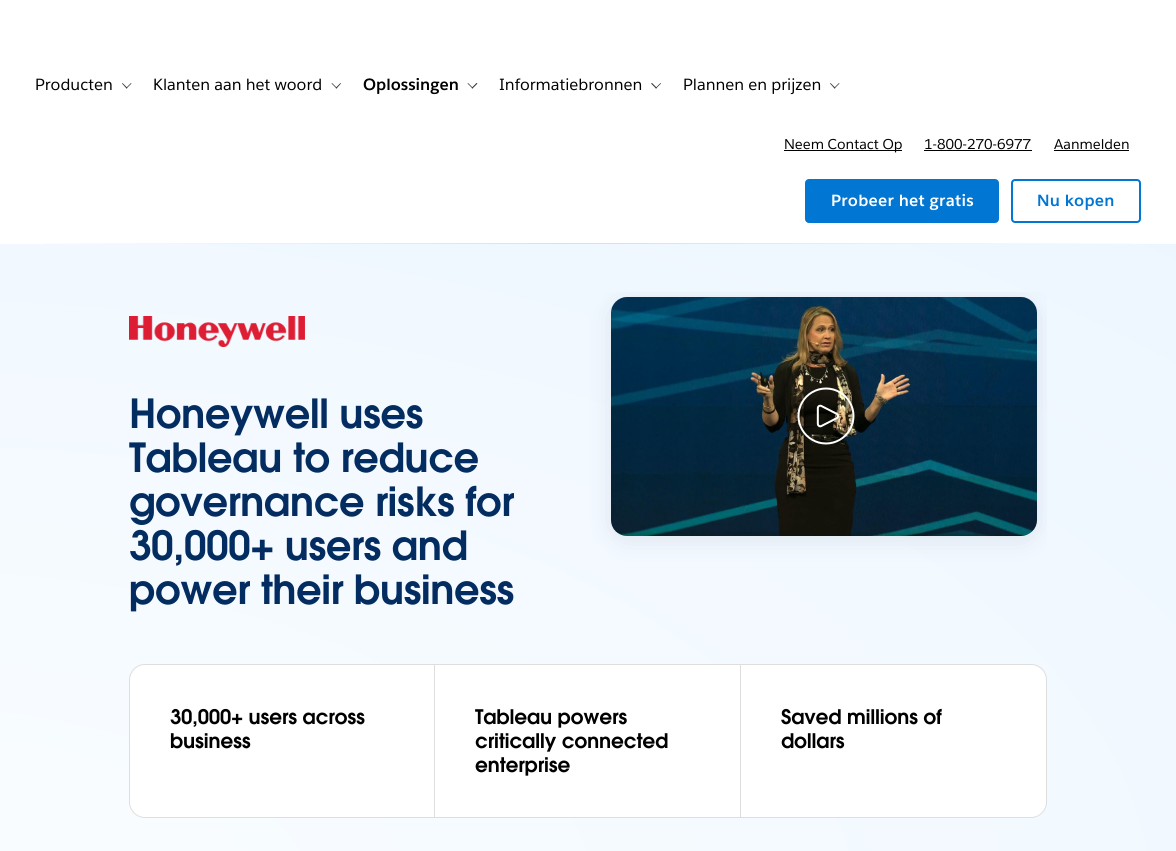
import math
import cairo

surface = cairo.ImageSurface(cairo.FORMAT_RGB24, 1176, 851)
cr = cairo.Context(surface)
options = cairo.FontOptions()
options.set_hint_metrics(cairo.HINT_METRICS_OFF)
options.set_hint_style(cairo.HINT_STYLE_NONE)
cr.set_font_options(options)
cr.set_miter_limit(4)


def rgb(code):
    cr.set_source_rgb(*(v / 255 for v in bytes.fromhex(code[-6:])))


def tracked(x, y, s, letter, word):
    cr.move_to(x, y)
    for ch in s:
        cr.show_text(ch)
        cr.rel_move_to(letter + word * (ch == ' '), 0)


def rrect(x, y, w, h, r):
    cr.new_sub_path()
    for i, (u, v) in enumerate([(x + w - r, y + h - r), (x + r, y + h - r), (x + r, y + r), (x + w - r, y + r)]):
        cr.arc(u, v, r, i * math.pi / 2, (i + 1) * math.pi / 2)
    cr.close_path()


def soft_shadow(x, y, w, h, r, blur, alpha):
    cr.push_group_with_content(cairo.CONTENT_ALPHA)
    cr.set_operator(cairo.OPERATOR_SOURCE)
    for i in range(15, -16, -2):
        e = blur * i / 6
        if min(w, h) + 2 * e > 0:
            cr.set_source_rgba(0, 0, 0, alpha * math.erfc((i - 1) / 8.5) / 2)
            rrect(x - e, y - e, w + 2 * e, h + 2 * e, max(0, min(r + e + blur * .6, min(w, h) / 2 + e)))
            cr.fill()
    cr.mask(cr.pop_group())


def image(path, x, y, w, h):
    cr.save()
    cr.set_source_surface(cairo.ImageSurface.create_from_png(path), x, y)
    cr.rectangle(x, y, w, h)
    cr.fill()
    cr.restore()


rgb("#ffffff")
cr.paint()
rgb("#333333")
cr.new_path()
cr.move_to(131, 83)
cr.line_to(131.5, 83.5)
cr.line_to(126.5, 88.5)
cr.line_to(126, 88)
cr.close_path()
cr.fill()
cr.new_path()
cr.move_to(122.5, 83)
cr.line_to(127.5, 88)
cr.line_to(126.5, 88.5)
cr.line_to(122, 83.5)
cr.close_path()
cr.fill()
cr.new_path()
cr.move_to(340.5, 83)
cr.line_to(341, 83.5)
cr.line_to(336.5, 88.5)
cr.line_to(335.5, 88)
cr.close_path()
cr.fill()
cr.new_path()
cr.move_to(332, 83)
cr.line_to(337, 88)
cr.line_to(336.5, 88.5)
cr.line_to(331.5, 83.5)
cr.close_path()
cr.fill()
cr.new_path()
cr.move_to(476.5, 83)
cr.line_to(477.5, 83.5)
cr.line_to(472.5, 88.5)
cr.line_to(471.5, 88)
cr.close_path()
cr.fill()
cr.new_path()
cr.move_to(468, 83)
cr.line_to(473, 88)
cr.line_to(472.5, 88.5)
cr.line_to(467.5, 83.5)
cr.close_path()
cr.fill()
cr.new_path()
cr.move_to(660.5, 83)
cr.line_to(661, 83.5)
cr.line_to(656, 88.5)
cr.line_to(655.5, 88)
cr.close_path()
cr.fill()
cr.new_path()
cr.move_to(652, 83)
cr.line_to(657, 88)
cr.line_to(656, 88.5)
cr.line_to(651, 83.5)
cr.close_path()
cr.fill()
cr.new_path()
cr.move_to(839, 83)
cr.line_to(839.5, 83.5)
cr.line_to(834.5, 88.5)
cr.line_to(834, 88)
cr.close_path()
cr.fill()
cr.new_path()
cr.move_to(830.5, 83)
cr.line_to(835.5, 88)
cr.line_to(834.5, 88.5)
cr.line_to(830, 83.5)
cr.close_path()
cr.fill()
for x, y, w, h, color in [
    (784, 150, 118, 1, "#000000"),
    (924, 150, 108, 1, "#000000"),
    (1054, 150, 75, 1, "#000000"),
]:
    rgb(color)
    cr.rectangle(x, y, w, h)
    cr.fill()
rgb("#0176d3")
rrect(806, 180, 192, 42, 3)
cr.fill_preserve()
cr.stroke()
rrect(1012, 180, 128, 42, 3)
cr.stroke()
gradient = cairo.LinearGradient(0, 244, 1176, 243)
gradient.add_color_stop_rgba(0, 1, 1, 1, 1)
gradient.add_color_stop_rgba(0.5, 0.871, 0.871, 0.871, 1)
gradient.add_color_stop_rgba(1, 1, 1, 1, 1)
cr.set_source(gradient)
cr.rectangle(45, 243, 1086, 1)
cr.fill()
gradient = cairo.RadialGradient(0, 0, 0, 0, 0, 1)
gradient.set_matrix(cairo.Matrix(1 / 1929, 0, 0, 1 / 933, -1 * -94 / 1929, -1 * 904 / 933))
gradient.add_color_stop_rgba(0, 0.98, 0.992, 1, 1)
gradient.add_color_stop_rgba(1, 0.929, 0.965, 1, 1)
cr.set_source(gradient)
cr.new_path()
cr.move_to(-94, 244)
cr.line_to(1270, 244)
cr.line_to(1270, 838)
cr.curve_to(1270, 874, 965, 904, 588, 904)
cr.curve_to(211, 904, -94, 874, -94, 838)
cr.close_path()
cr.fill()
image("img/1.png", 129, 316, 176, 31)
image("img/2.png", 131, 398, 292, 38)
image("img/3.png", 129, 442, 349, 31)
image("img/4.png", 130, 485, 384, 40)
image("img/5.png", 130, 529, 337, 37)
image("img/6.png", 130, 574, 384, 38)
cr.save()
cr.rectangle(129, 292, 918, 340)
cr.clip()
rgb("#6f7e94")
soft_shadow(611, 301, 426, 239, 16, 12, 0.16)
cr.restore()
image("img/7.png", 611, 297, 426, 239)
image("img/8.png", 797, 387, 58, 58)
rgb("#ffffff")
rrect(129.5, 664.5, 917, 153, 15.5)
cr.fill_preserve()
rgb("#dedede")
cr.set_line_width(1)
cr.stroke()
cr.rectangle(434, 665, 1, 152)
cr.fill()
image("img/9.png", 170, 708, 195, 19)
image("img/10.png", 170, 733, 81, 16)
cr.rectangle(740, 665, 1, 152)
cr.fill()
image("img/11.png", 475, 709, 152, 19)
image("img/12.png", 475, 733, 193, 19)
image("img/13.png", 475, 757, 95, 19)
image("img/14.png", 781, 708, 161, 17)
image("img/15.png", 781, 733, 64, 16)
cr.select_font_face("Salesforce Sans")
cr.set_font_size(16)
rgb("#000000")
cr.move_to(35, 90)
cr.show_text("Producten")
cr.move_to(153, 90)
cr.show_text("Klanten aan het woord")
cr.select_font_face("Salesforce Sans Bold", cairo.FONT_SLANT_NORMAL, cairo.FONT_WEIGHT_BOLD)
cr.move_to(363, 90)
cr.show_text("Oplossingen")
cr.select_font_face("Salesforce Sans")
cr.move_to(499, 90)
cr.show_text("Informatiebronnen")
cr.move_to(683, 90)
cr.show_text("Plannen en prijzen")
cr.set_font_size(14)
for x, y, s in [
    (784, 149, "Neem Contact Op"),
    (924, 149, "1-800-270-6977"),
    (1054, 149, "Aanmelden"),
]:
    cr.move_to(x, y)
    cr.show_text(s)
cr.select_font_face("Salesforce Sans Bold", cairo.FONT_SLANT_NORMAL, cairo.FONT_WEIGHT_BOLD)
cr.set_font_size(16)
rgb("#ffffff")
tracked(831, 206, "Probeer het gratis", 0.25, 0)
rgb("#0176d3")
tracked(1037, 206, "Nu kopen", 0.25, 0)
surface.write_to_png("page.png")
